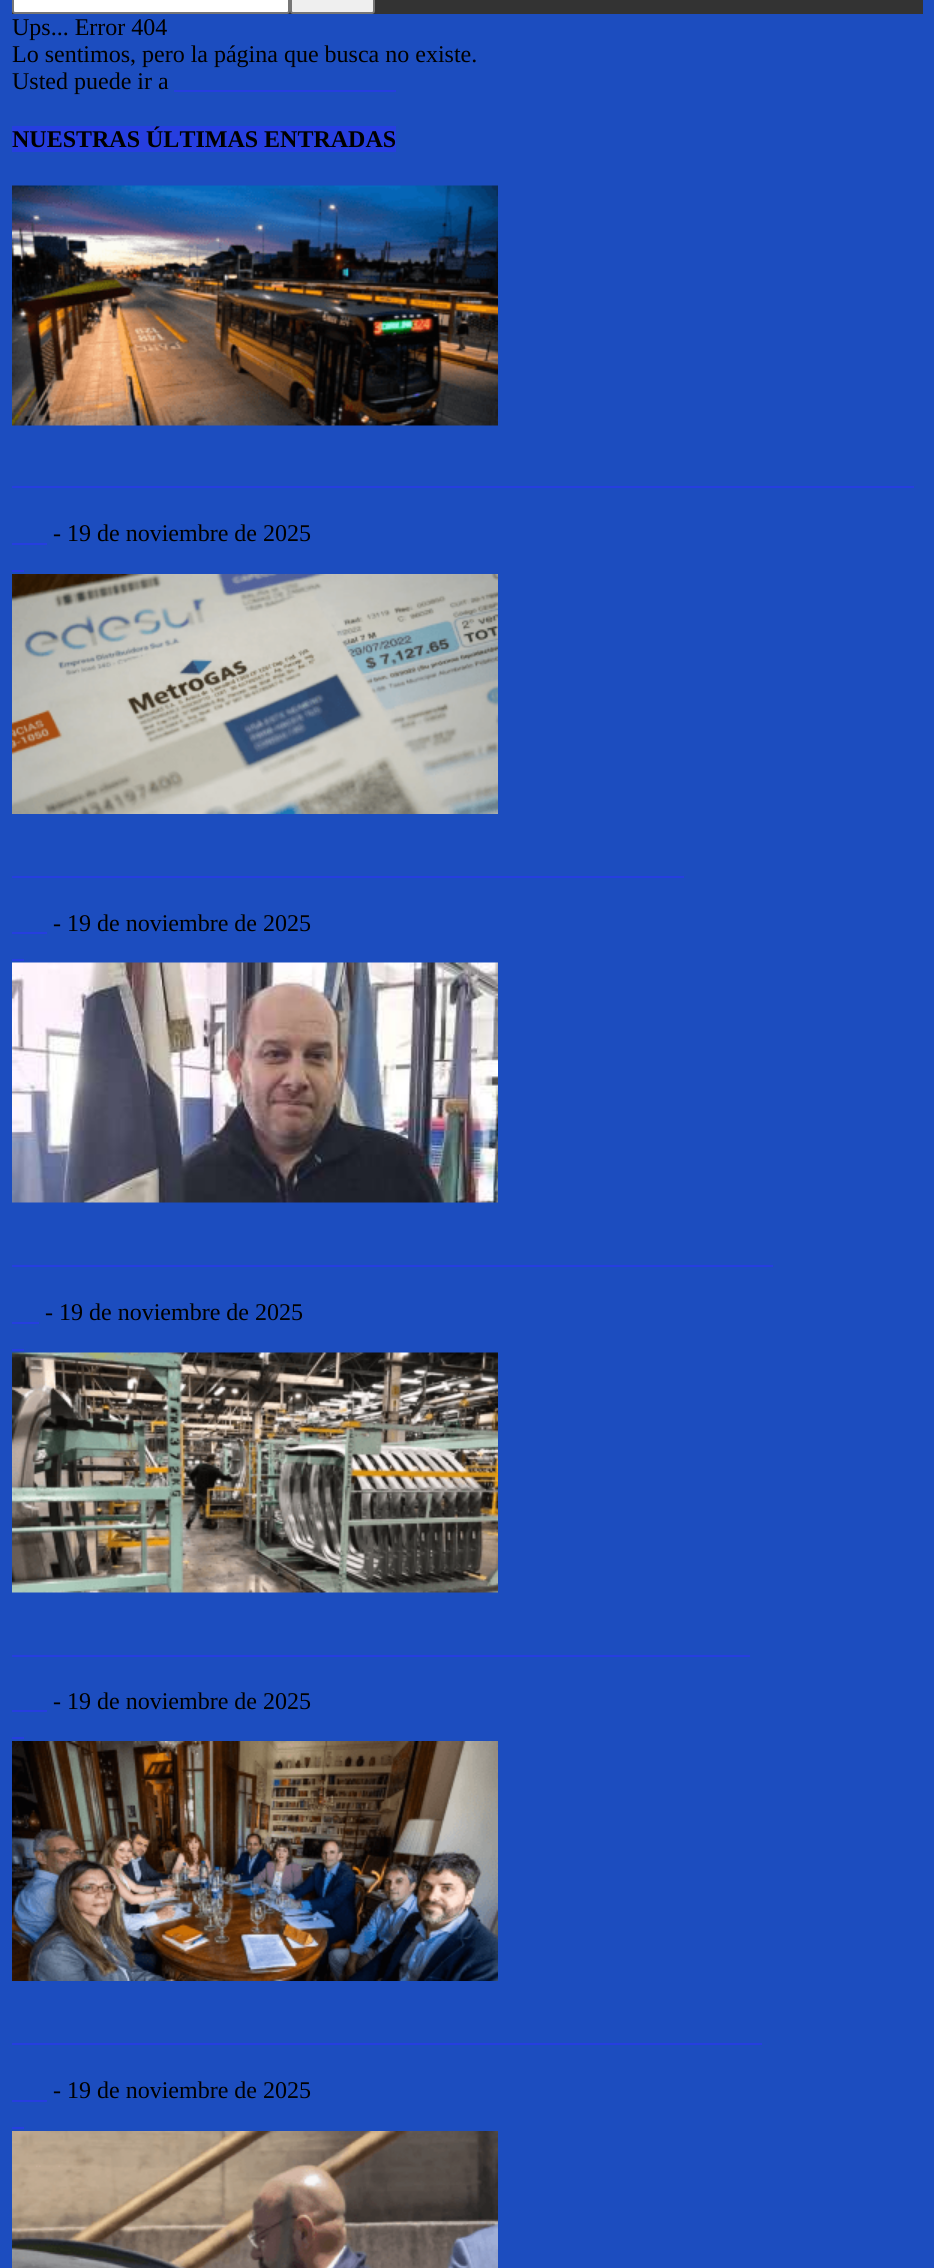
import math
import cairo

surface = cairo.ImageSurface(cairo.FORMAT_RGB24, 934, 2268)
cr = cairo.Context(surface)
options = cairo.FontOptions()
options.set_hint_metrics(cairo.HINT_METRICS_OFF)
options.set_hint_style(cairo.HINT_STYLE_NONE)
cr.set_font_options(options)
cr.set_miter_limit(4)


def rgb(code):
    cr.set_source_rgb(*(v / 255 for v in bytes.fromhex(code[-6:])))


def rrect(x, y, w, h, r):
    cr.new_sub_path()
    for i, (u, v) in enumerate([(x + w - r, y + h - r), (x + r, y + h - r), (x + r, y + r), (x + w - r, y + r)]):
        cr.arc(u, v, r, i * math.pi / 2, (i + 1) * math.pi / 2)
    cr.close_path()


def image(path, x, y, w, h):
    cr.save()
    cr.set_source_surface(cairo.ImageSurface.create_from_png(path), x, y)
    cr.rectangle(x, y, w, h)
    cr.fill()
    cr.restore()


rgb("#1c4dbf")
cr.paint()
rgb("#333333")
cr.rectangle(12, 0, 911, 14)
cr.fill()
rgb("#ffffff")
rrect(13, -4, 276, 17, 2)
cr.fill_preserve()
rgb("#767676")
cr.stroke()
rgb("#efefef")
rrect(291, -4, 83, 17, 2)
cr.fill_preserve()
rgb("#767676")
cr.stroke()
rgb("#263ee0")
cr.rectangle(174, 90, 222, 2)
cr.fill()
cr.rectangle(12, 126, 384, 26)
cr.fill()
image("img/1.png", 12, 185, 486, 241)
for x, y, w, h, color in [
    (12, 486, 902, 2, "#263ee0"),
    (12, 543, 35, 2, "#263ee0"),
    (12, 570, 12, 2, "#263ee0"),
]:
    rgb(color)
    cr.rectangle(x, y, w, h)
    cr.fill()
image("img/2.png", 12, 574, 486, 240)
for x, y, w, h, color in [
    (12, 876, 672, 2, "#263ee0"),
    (12, 932, 35, 2, "#263ee0"),
    (12, 959, 12, 2, "#263ee0"),
]:
    rgb(color)
    cr.rectangle(x, y, w, h)
    cr.fill()
image("img/3.png", 12, 962, 486, 241)
for x, y, w, h, color in [
    (12, 1265, 761, 2, "#263ee0"),
    (12, 1322, 27, 2, "#263ee0"),
    (12, 1349, 12, 2, "#263ee0"),
]:
    rgb(color)
    cr.rectangle(x, y, w, h)
    cr.fill()
image("img/4.png", 12, 1352, 486, 241)
for x, y, w, h, color in [
    (12, 1655, 738, 2, "#263ee0"),
    (12, 1710, 35, 2, "#263ee0"),
    (12, 1737, 12, 2, "#263ee0"),
]:
    rgb(color)
    cr.rectangle(x, y, w, h)
    cr.fill()
image("img/5.png", 12, 1741, 486, 240)
for x, y, w, h, color in [
    (12, 2043, 750, 2, "#263ee0"),
    (12, 2100, 35, 2, "#263ee0"),
    (12, 2127, 12, 2, "#263ee0"),
]:
    rgb(color)
    cr.rectangle(x, y, w, h)
    cr.fill()
image("img/6.png", 12, 2131, 486, 137)
cr.select_font_face("Liberation Serif")
cr.set_font_size(24)
rgb("#000000")
for x, y, s in [
    (12, 35, "Ups... Error 404"),
    (12, 62, "Lo sentimos, pero la página que busca no existe."),
    (12, 89, "Usted puede ir a"),
]:
    cr.move_to(x, y)
    cr.show_text(s)
cr.select_font_face("Liberation Serif", cairo.FONT_SLANT_NORMAL, cairo.FONT_WEIGHT_BOLD)
cr.move_to(12, 147)
cr.show_text("NUESTRAS ÚLTIMAS ENTRADAS")
cr.select_font_face("Liberation Serif")
for x, y, s in [
    (53, 541, "- 19 de noviembre de 2025"),
    (53, 931, "- 19 de noviembre de 2025"),
    (45, 1320, "- 19 de noviembre de 2025"),
    (53, 1709, "- 19 de noviembre de 2025"),
    (53, 2098, "- 19 de noviembre de 2025"),
]:
    cr.move_to(x, y)
    cr.show_text(s)
surface.write_to_png("page.png")
